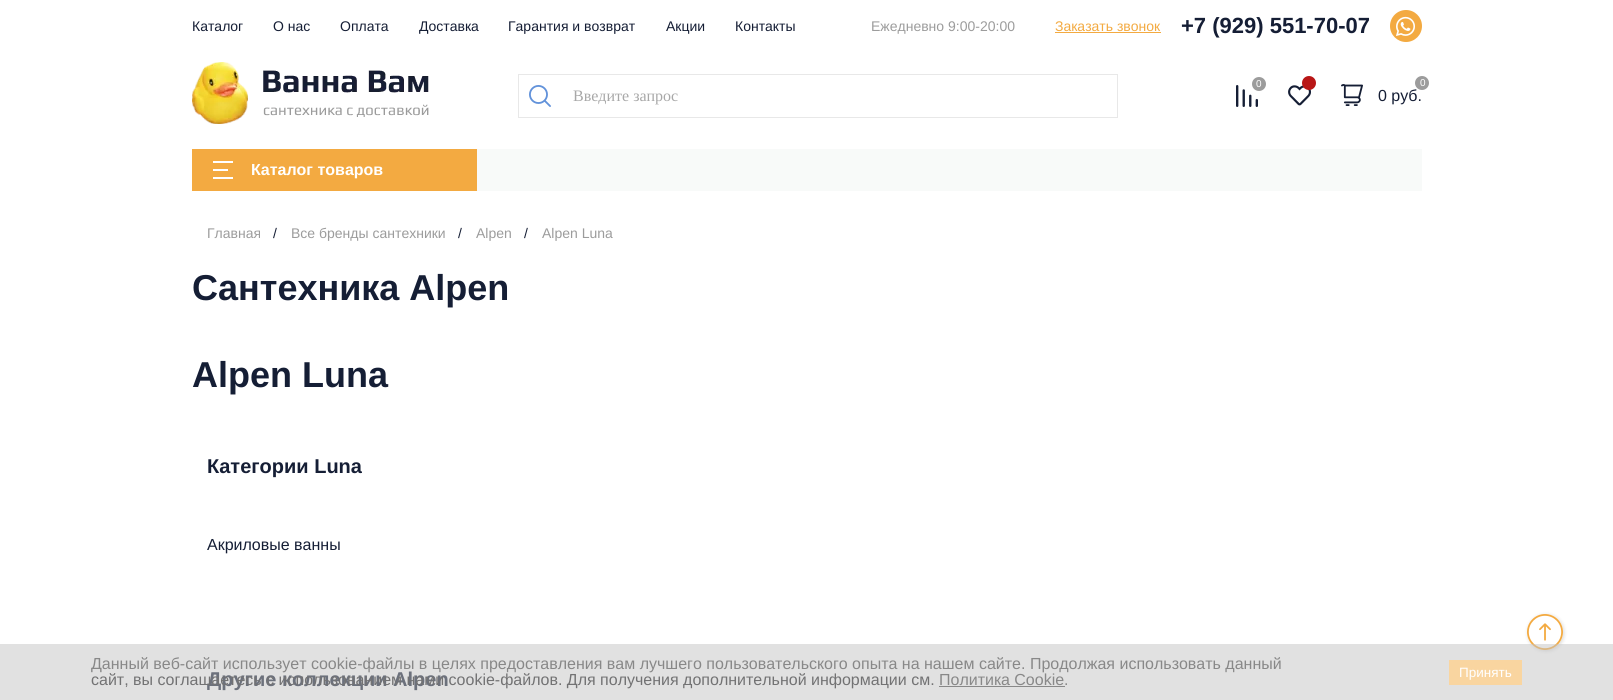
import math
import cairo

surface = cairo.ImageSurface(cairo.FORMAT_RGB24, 1613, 700)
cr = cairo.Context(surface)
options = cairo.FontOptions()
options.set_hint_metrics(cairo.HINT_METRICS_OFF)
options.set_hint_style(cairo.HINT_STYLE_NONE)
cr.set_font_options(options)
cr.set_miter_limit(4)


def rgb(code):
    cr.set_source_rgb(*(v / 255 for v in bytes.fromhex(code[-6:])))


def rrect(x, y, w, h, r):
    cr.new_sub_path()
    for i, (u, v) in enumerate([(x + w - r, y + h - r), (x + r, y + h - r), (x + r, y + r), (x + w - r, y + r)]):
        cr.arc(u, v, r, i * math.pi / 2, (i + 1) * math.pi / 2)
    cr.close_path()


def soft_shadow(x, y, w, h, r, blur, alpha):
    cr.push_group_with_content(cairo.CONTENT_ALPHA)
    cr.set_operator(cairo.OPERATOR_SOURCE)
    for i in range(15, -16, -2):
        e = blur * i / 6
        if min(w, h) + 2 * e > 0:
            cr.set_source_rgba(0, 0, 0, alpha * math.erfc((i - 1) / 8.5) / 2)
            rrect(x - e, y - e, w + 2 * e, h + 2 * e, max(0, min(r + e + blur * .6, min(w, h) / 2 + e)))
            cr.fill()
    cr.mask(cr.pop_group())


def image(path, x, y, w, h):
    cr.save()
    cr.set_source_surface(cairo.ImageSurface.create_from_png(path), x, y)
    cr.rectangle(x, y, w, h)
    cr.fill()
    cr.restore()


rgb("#ffffff")
cr.paint()
rgb("#f3aa41")
cr.rectangle(1055, 32, 106, 1)
cr.fill()
cr.arc(1406, 26, 16, 0, 2 * math.pi)
cr.fill()
image("img/1.png", 1396, 16, 19, 20)
image("img/2.png", 192, 62, 237, 62)
cr.rectangle(518.5, 74.5, 599, 43)
rgb("#e8e8e8")
cr.set_line_width(1)
cr.stroke()
image("img/3.png", 529, 85, 22, 22)
image("img/4.png", 1236, 85, 22, 22)
rgb("#9c9c9c")
cr.arc(1259, 84, 7, 0, 2 * math.pi)
cr.fill()
image("img/5.png", 1288, 85, 23, 21)
rgb("#b81616")
cr.arc(1309, 83, 7, 0, 2 * math.pi)
cr.fill()
image("img/6.png", 1341, 84, 22, 22)
for x, y, w, h, color in [
    (477, 149, 945, 42, "#f8faf9"),
    (192, 149, 285, 42, "#f3aa41"),
    (213, 161, 20, 2, "#ffffff"),
    (213, 169, 15, 2, "#ffffff"),
    (213, 177, 20, 2, "#ffffff"),
]:
    rgb(color)
    cr.rectangle(x, y, w, h)
    cr.fill()
cr.save()
cr.set_fill_rule(cairo.FILL_RULE_EVEN_ODD)
cr.new_path()
cr.move_to(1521, 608)
cr.line_to(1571, 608)
cr.line_to(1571, 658)
cr.line_to(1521, 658)
cr.close_path()
cr.move_to(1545, 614)
cr.curve_to(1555, 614, 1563, 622, 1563, 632)
cr.curve_to(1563, 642, 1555, 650, 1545, 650)
cr.curve_to(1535, 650, 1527, 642, 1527, 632)
cr.curve_to(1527, 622, 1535, 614, 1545, 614)
cr.close_path()
cr.clip()
rgb("#000000")
soft_shadow(1528, 615, 36, 36, 18, 2, 0.15)
cr.restore()
image("img/7.png", 1527, 614, 36, 36)
cr.select_font_face("Liberation Sans")
cr.set_font_size(14)
rgb("#151e35")
for x, y, s in [
    (192, 31, "Каталог"),
    (273, 31, "О нас"),
    (340, 31, "Оплата"),
    (419, 31, "Доставка"),
    (508, 31, "Гарантия и возврат"),
    (666, 31, "Акции"),
    (735, 31, "Контакты"),
]:
    cr.move_to(x, y)
    cr.show_text(s)
rgb("#9c9c9c")
cr.move_to(871, 31)
cr.show_text("Ежедневно 9:00-20:00")
rgb("#f3aa41")
cr.move_to(1055, 31)
cr.show_text("Заказать звонок")
cr.select_font_face("Liberation Sans", cairo.FONT_SLANT_NORMAL, cairo.FONT_WEIGHT_BOLD)
cr.set_font_size(22)
rgb("#151e35")
cr.move_to(1181, 33)
cr.show_text("+7 (929) 551-70-07")
cr.select_font_face("Liberation Serif")
cr.set_font_size(16)
rgb("#a8a8a8")
cr.move_to(573, 101)
cr.show_text("Введите запрос")
cr.select_font_face("Liberation Sans")
cr.set_font_size(10)
rgb("#ffffff")
cr.move_to(1256, 87)
cr.show_text("0")
cr.set_font_size(16)
rgb("#151e35")
cr.move_to(1378, 101)
cr.show_text("0 руб.")
rgb("#9c9c9c")
cr.new_path()
cr.arc(1422, 83, 7, 0, 2 * math.pi)
cr.fill()
cr.set_font_size(10)
rgb("#ffffff")
cr.move_to(1420, 86)
cr.show_text("0")
cr.select_font_face("Liberation Sans", cairo.FONT_SLANT_NORMAL, cairo.FONT_WEIGHT_BOLD)
cr.set_font_size(16)
cr.move_to(251, 175)
cr.show_text("Каталог товаров")
cr.select_font_face("Liberation Sans")
cr.set_font_size(14)
rgb("#9c9c9c")
cr.move_to(207, 238)
cr.show_text("Главная")
rgb("#151e35")
cr.move_to(273, 238)
cr.show_text("/")
rgb("#9c9c9c")
cr.move_to(291, 238)
cr.show_text("Все бренды сантехники")
rgb("#151e35")
cr.move_to(458, 238)
cr.show_text("/")
rgb("#9c9c9c")
cr.move_to(476, 238)
cr.show_text("Alpen")
rgb("#151e35")
cr.move_to(524, 238)
cr.show_text("/")
rgb("#9c9c9c")
cr.move_to(542, 238)
cr.show_text("Alpen Luna")
cr.select_font_face("Liberation Sans", cairo.FONT_SLANT_NORMAL, cairo.FONT_WEIGHT_BOLD)
cr.set_font_size(36)
rgb("#151e35")
cr.move_to(192, 300)
cr.show_text("Сантехника Alpen")
cr.move_to(192, 387)
cr.show_text("Alpen Luna")
cr.set_font_size(20)
cr.move_to(207, 473)
cr.show_text("Категории Luna")
cr.select_font_face("Liberation Sans")
cr.set_font_size(16)
cr.move_to(207, 550)
cr.show_text("Акриловые ванны")
cr.select_font_face("Liberation Sans", cairo.FONT_SLANT_NORMAL, cairo.FONT_WEIGHT_BOLD)
cr.set_font_size(20)
cr.move_to(207, 686)
cr.show_text("Другие коллекции Alpen")
cr.set_source_rgba(0.773, 0.773, 0.773, 0.5)
cr.rectangle(0, 644, 1613, 56)
cr.fill()
cr.select_font_face("Liberation Sans")
cr.set_font_size(16)
rgb("#888888")
cr.move_to(91, 669)
cr.show_text("Данный веб-сайт использует cookie-файлы в целях предоставления вам лучшего пользовательского опыта на нашем сайте. Продолжая использовать данный")
rgb("#727273")
cr.move_to(91, 685)
cr.show_text("сайт, вы соглашаетесь с использованием нами cookie-файлов. Для получения дополнительной информации см.")
rgb("#888888")
cr.move_to(939, 685)
cr.show_text("Политика Cookie.")
cr.rectangle(939, 686, 126, 1)
cr.fill()
rgb("#f9d5a0")
cr.rectangle(1449, 660, 73, 25)
cr.fill()
cr.set_font_size(13.5)
rgb("#ffffff")
cr.move_to(1459, 677)
cr.show_text("Принять")
surface.write_to_png("page.png")
